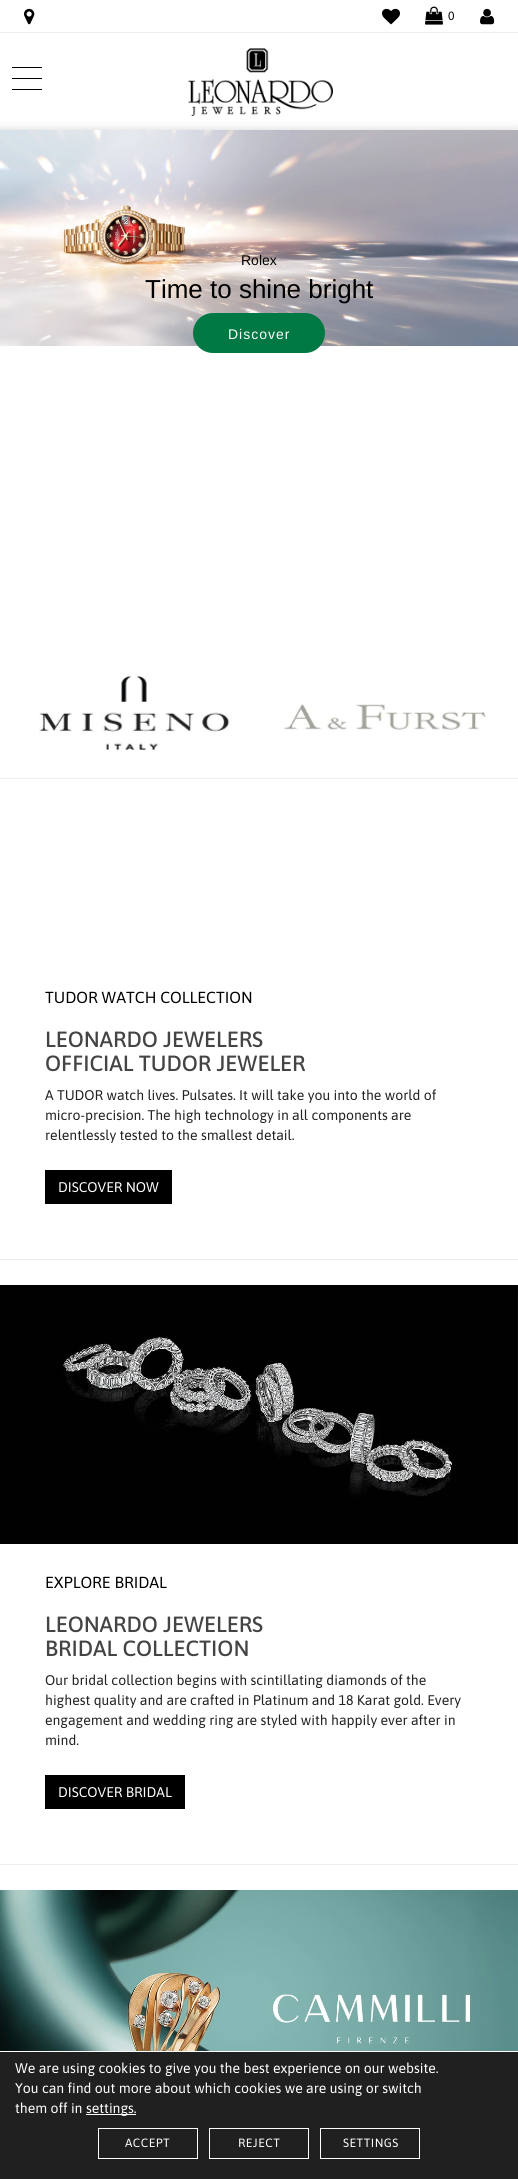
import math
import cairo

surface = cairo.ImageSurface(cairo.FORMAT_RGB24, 518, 2179)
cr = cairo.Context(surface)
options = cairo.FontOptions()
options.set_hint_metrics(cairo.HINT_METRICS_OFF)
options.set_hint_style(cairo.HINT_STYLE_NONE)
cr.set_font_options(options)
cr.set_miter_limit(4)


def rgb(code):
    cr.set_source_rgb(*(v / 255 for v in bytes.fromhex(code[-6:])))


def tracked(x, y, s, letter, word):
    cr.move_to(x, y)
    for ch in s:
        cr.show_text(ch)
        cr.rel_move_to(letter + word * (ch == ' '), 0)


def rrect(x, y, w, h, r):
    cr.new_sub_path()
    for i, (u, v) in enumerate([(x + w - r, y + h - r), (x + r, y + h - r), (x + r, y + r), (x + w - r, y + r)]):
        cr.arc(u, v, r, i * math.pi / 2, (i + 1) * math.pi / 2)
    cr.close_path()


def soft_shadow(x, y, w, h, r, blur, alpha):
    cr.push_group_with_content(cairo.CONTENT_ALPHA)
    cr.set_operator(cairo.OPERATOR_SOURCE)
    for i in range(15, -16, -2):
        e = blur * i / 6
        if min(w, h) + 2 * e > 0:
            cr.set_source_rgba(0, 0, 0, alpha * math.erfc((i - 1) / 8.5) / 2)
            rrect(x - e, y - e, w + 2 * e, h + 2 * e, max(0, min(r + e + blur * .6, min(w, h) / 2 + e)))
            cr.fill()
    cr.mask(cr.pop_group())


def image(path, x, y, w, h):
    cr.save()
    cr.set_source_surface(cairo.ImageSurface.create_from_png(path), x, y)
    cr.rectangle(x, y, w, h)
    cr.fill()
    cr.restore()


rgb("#ffffff")
cr.paint()
rgb("#eeeeee")
cr.rectangle(0, 32, 518, 1)
cr.fill()
image("img/1.png", 24, 8, 11, 17)
image("img/2.png", 382, 8, 18, 17)
image("img/3.png", 425, 6, 18, 19)
image("img/4.png", 480, 8, 15, 17)
for x, y, w, h, color in [
    (12, 67, 30, 1, "#000000"),
    (12, 78, 30, 1, "#000000"),
    (12, 89, 30, 1, "#000000"),
]:
    rgb(color)
    cr.rectangle(x, y, w, h)
    cr.fill()
cr.save()
cr.rectangle(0, 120, 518, 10)
cr.clip()
rgb("#d5d5d5")
soft_shadow(0, 130, 518, 518, 0, 5, 1)
cr.restore()
image("img/5.png", 188, 48, 145, 68)
image("img/6.png", 0, 130, 518, 216)
rgb("#007843")
rrect(193, 313, 132, 40, 20)
cr.fill()
rgb("#ffffff")
cr.rectangle(0, 648, 518, 8)
cr.fill()
rgb("#eeeeee")
cr.rectangle(0, 778, 518, 1)
cr.fill()
image("img/7.png", 39, 675, 191, 75)
image("img/8.png", 284, 704, 202, 26)
for x, y, w, h, color in [
    (0, 1259, 518, 1, "#eeeeee"),
    (45, 1170, 127, 34, "#000000"),
    (0, 1864, 518, 1, "#eeeeee"),
]:
    rgb(color)
    cr.rectangle(x, y, w, h)
    cr.fill()
image("img/9.png", 0, 1285, 518, 259)
rgb("#000000")
cr.rectangle(45, 1775, 140, 34)
cr.fill()
image("img/10.png", 0, 1890, 518, 161)
rgb("#202020")
cr.rectangle(0, 2052, 518, 127)
cr.fill()
rgb("#ffffff")
cr.rectangle(86, 2114, 50, 1)
cr.fill()
cr.rectangle(98.5, 2128.5, 99, 30)
cr.set_line_width(1)
cr.stroke()
cr.rectangle(209.5, 2128.5, 99, 30)
cr.stroke()
cr.rectangle(320.5, 2128.5, 99, 30)
cr.stroke()
cr.select_font_face("Asap")
cr.set_font_size(12)
rgb("#000000")
cr.move_to(448, 20)
cr.show_text("0")
cr.select_font_face("Liberation Sans")
cr.set_font_size(14)
cr.move_to(241, 265)
cr.show_text("Rolex")
cr.set_font_size(26)
cr.move_to(145, 298)
cr.show_text("Time to shine bright")
cr.set_font_size(14)
rgb("#ffffff")
tracked(228, 339, "Discover", 1, 0)
cr.select_font_face("Asap")
cr.set_font_size(16)
rgb("#000000")
cr.move_to(45, 1003)
cr.show_text("TUDOR WATCH COLLECTION")
cr.select_font_face("Asap Medium")
cr.set_font_size(22)
rgb("#444444")
cr.move_to(45, 1047)
cr.show_text("LEONARDO JEWELERS")
cr.move_to(45, 1071)
cr.show_text("OFFICIAL TUDOR JEWELER")
cr.select_font_face("Asap")
cr.set_font_size(14)
rgb("#222222")
for x, y, s in [
    (45, 1100, "A TUDOR watch lives. Pulsates. It will take you into the world of"),
    (45, 1120, "micro-precision. The high technology in all components are"),
    (45, 1140, "relentlessly tested to the smallest detail."),
]:
    cr.move_to(x, y)
    cr.show_text(s)
rgb("#ffffff")
cr.move_to(58, 1192)
cr.show_text("DISCOVER NOW")
cr.set_font_size(16)
rgb("#000000")
cr.move_to(45, 1588)
cr.show_text("EXPLORE BRIDAL")
cr.select_font_face("Asap Medium")
cr.set_font_size(22)
rgb("#444444")
cr.move_to(45, 1632)
cr.show_text("LEONARDO JEWELERS")
cr.move_to(45, 1656)
cr.show_text("BRIDAL COLLECTION")
cr.select_font_face("Asap")
cr.set_font_size(14)
rgb("#222222")
for x, y, s in [
    (45, 1685, "Our bridal collection begins with scintillating diamonds of the"),
    (45, 1705, "highest quality and are crafted in Platinum and 18 Karat gold. Every"),
    (45, 1725, "engagement and wedding ring are styled with happily ever after in"),
    (45, 1745, "mind."),
]:
    cr.move_to(x, y)
    cr.show_text(s)
rgb("#ffffff")
for x, y, s in [
    (58, 1797, "DISCOVER BRIDAL"),
    (15, 2073, "We are using cookies to give you the best experience on our website."),
    (15, 2093, "You can find out more about which cookies we are using or switch"),
    (15, 2113, "them off in"),
    (86, 2113, "settings."),
]:
    cr.move_to(x, y)
    cr.show_text(s)
cr.set_font_size(12)
for x, y, s in [
    (125, 2147, "ACCEPT"),
    (238, 2147, "REJECT"),
    (343, 2147, "SETTINGS"),
]:
    tracked(x, y, s, 0.5, 0)
surface.write_to_png("page.png")
